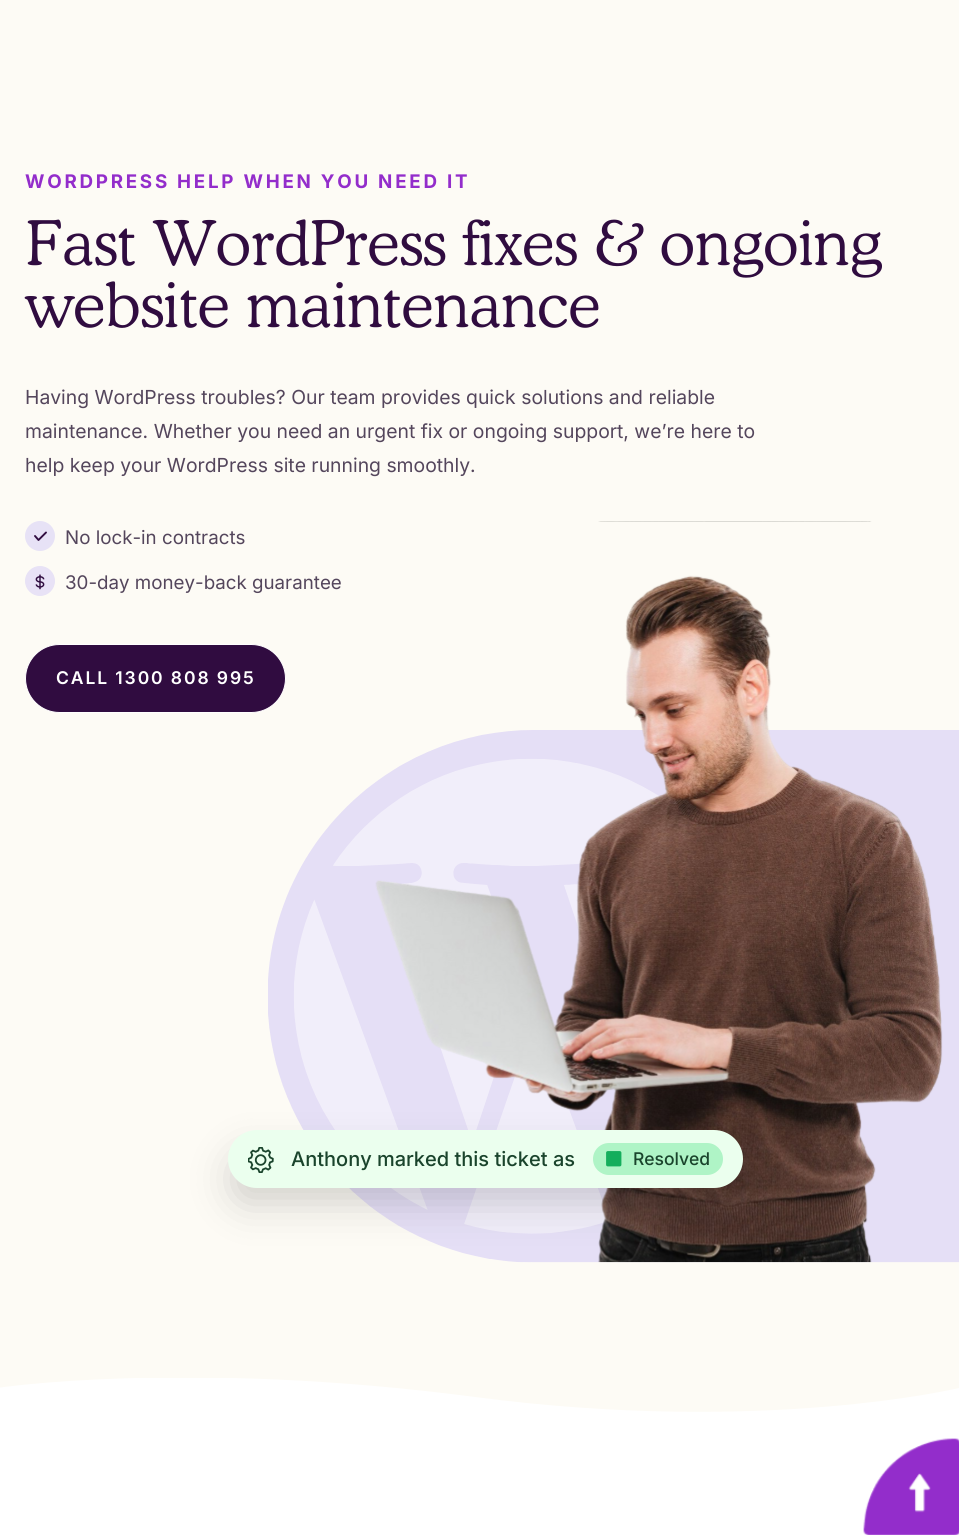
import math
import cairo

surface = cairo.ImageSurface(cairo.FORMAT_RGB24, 959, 1535)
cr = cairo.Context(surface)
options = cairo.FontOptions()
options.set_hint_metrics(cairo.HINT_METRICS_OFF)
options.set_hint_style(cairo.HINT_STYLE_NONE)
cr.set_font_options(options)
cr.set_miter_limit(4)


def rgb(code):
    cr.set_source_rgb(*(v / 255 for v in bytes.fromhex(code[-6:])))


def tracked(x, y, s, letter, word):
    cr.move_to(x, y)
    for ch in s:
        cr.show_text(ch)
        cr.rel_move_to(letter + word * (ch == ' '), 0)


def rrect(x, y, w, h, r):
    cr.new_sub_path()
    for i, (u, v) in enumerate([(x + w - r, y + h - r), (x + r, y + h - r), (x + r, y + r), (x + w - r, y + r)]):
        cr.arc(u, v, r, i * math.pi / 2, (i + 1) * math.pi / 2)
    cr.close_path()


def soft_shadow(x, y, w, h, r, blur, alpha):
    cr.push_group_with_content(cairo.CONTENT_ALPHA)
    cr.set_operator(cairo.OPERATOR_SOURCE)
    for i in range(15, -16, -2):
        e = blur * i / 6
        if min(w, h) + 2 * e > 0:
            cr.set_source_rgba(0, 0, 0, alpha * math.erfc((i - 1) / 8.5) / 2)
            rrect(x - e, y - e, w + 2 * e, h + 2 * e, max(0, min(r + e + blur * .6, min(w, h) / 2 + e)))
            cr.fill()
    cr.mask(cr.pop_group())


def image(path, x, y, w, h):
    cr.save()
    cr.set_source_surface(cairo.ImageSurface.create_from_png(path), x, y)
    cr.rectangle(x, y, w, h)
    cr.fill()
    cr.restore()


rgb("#ffffff")
cr.paint()
rgb("#fdfbf5")
cr.rectangle(0, 0, 959, 1412)
cr.fill()
rgb("#e7e2f6")
cr.arc(40, 536, 15, 0, 2 * math.pi)
cr.fill()
cr.new_path()
cr.move_to(46, 532.5)
cr.line_to(38.5, 540)
cr.line_to(35, 536)
rgb("#300c40")
cr.set_line_width(1.9)
cr.set_line_cap(cairo.LINE_CAP_ROUND)
cr.set_line_join(cairo.LINE_JOIN_ROUND)
cr.stroke()
image("img/1.png", 25, 566, 30, 30)
image("img/2.png", 268, 521, 691, 742)
rrect(25.5, 644.5, 260, 68, 34)
cr.fill_preserve()
rgb("#ffffff")
cr.set_line_width(1)
cr.set_line_cap(cairo.LINE_CAP_BUTT)
cr.set_line_join(cairo.LINE_JOIN_MITER)
cr.stroke()
rgb("#0c0c0d")
soft_shadow(233, 1155, 505, 48, 24, 20, 0.18)
rgb("#ebffee")
rrect(228, 1130, 515, 58, 29)
cr.fill()
image("img/3.png", 248, 1147, 26, 26)
rgb("#aff4c6")
rrect(593, 1143, 130, 32, 16)
cr.fill()
image("img/4.png", 606, 1151, 16, 16)
cr.save()
cr.rectangle(0, 1378, 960, 57)
cr.clip()
rgb("#ffffff")
cr.set_fill_rule(cairo.FILL_RULE_EVEN_ODD)
cr.new_path()
cr.move_to(475, 1397)
cr.curve_to(185, 1359, -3, 1388, -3, 1388)
cr.curve_to(-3, 1388, -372, 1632, -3, 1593)
cr.line_to(0, 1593)
cr.line_to(0, 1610)
cr.line_to(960, 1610)
cr.line_to(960, 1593)
cr.curve_to(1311, 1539, 959, 1388, 959, 1388)
cr.curve_to(959, 1388, 764, 1435, 475, 1397)
cr.close_path()
cr.fill()
cr.restore()
image("img/5.png", 863, 1438, 96, 97)
cr.select_font_face("Inter", cairo.FONT_SLANT_NORMAL, cairo.FONT_WEIGHT_BOLD)
cr.set_font_size(18.75)
rgb("#932dcb")
tracked(25, 188, "WORDPRESS HELP WHEN YOU NEED IT", 2.75, 0)
cr.select_font_face("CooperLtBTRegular")
cr.set_font_size(61.5)
rgb("#300c40")
cr.move_to(25, 265)
cr.show_text("Fast WordPress fixes & ongoing")
cr.move_to(25, 327)
cr.show_text("website maintenance")
cr.select_font_face("Inter")
cr.set_font_size(19.35)
rgb("#54465c")
for x, y, s in [
    (25, 404, "Having WordPress troubles? Our team provides quick solutions and reliable"),
    (25, 438, "maintenance. Whether you need an urgent fix or ongoing support, we’re here to"),
    (25, 472, "help keep your WordPress site running smoothly."),
]:
    cr.move_to(x, y)
    cr.show_text(s)
cr.set_font_size(18.75)
cr.move_to(65, 544)
cr.show_text("No lock-in contracts")
cr.move_to(65, 589)
cr.show_text("30-day money-back guarantee")
cr.select_font_face("Inter SemiBold")
cr.set_font_size(17.5)
rgb("#ffffff")
tracked(56, 684, "CALL 1300 808 995", 1.9, 0)
cr.select_font_face("Inter Medium")
cr.set_font_size(20)
rgb("#1a442c")
cr.move_to(291, 1166)
cr.show_text("Anthony marked this ticket as")
cr.set_font_size(17.5)
cr.move_to(633, 1165)
cr.show_text("Resolved")
surface.write_to_png("page.png")
